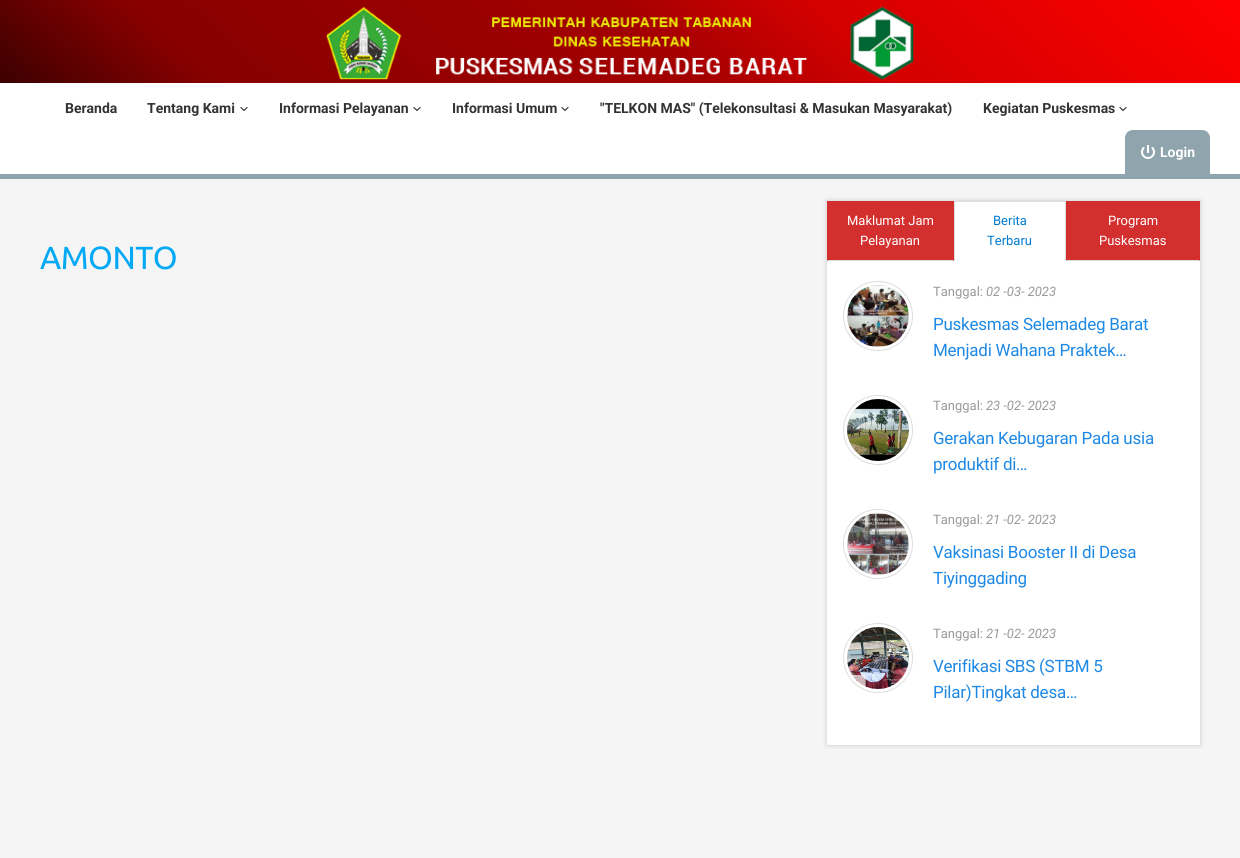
import math
import cairo

surface = cairo.ImageSurface(cairo.FORMAT_RGB24, 1240, 858)
cr = cairo.Context(surface)
options = cairo.FontOptions()
options.set_hint_metrics(cairo.HINT_METRICS_OFF)
options.set_hint_style(cairo.HINT_STYLE_NONE)
cr.set_font_options(options)
cr.set_miter_limit(4)


def rgb(code):
    cr.set_source_rgb(*(v / 255 for v in bytes.fromhex(code[-6:])))


def tracked(x, y, s, letter, word):
    cr.move_to(x, y)
    for ch in s:
        cr.show_text(ch)
        cr.rel_move_to(letter + word * (ch == ' '), 0)


def rrect(x, y, w, h, r):
    cr.new_sub_path()
    for i, (u, v) in enumerate([(x + w - r, y + h - r), (x + r, y + h - r), (x + r, y + r), (x + w - r, y + r)]):
        cr.arc(u, v, r, i * math.pi / 2, (i + 1) * math.pi / 2)
    cr.close_path()


def soft_shadow(x, y, w, h, r, blur, alpha):
    cr.push_group_with_content(cairo.CONTENT_ALPHA)
    cr.set_operator(cairo.OPERATOR_SOURCE)
    for i in range(15, -16, -2):
        e = blur * i / 6
        if min(w, h) + 2 * e > 0:
            cr.set_source_rgba(0, 0, 0, alpha * math.erfc((i - 1) / 8.5) / 2)
            rrect(x - e, y - e, w + 2 * e, h + 2 * e, max(0, min(r + e + blur * .6, min(w, h) / 2 + e)))
            cr.fill()
    cr.mask(cr.pop_group())


def image(path, x, y, w, h):
    cr.save()
    cr.set_source_surface(cairo.ImageSurface.create_from_png(path), x, y)
    cr.rectangle(x, y, w, h)
    cr.fill()
    cr.restore()


rgb("#f5f5f5")
cr.paint()
gradient = cairo.LinearGradient(918, -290, 322, 373)
gradient.add_color_stop_rgba(0, 1, 0, 0, 1)
gradient.add_color_stop_rgba(0.33, 0.824, 0, 0, 1)
gradient.add_color_stop_rgba(0.47, 0.643, 0, 0, 1)
gradient.add_color_stop_rgba(0.84, 0.529, 0, 0, 1)
gradient.add_color_stop_rgba(1, 0.235, 0, 0, 1)
cr.set_source(gradient)
cr.rectangle(0, 0, 1240, 83)
cr.fill()
image("img/1.png", 326, 6, 588, 74)
rgb("#ffffff")
cr.rectangle(0, 83, 1240, 91)
cr.fill()
rgb("#90a4ae")
cr.rectangle(0, 174, 1240, 5)
cr.fill()
image("img/2.png", 240, 107, 8, 4)
image("img/2.png", 413, 107, 8, 4)
image("img/2.png", 561, 107, 8, 4)
image("img/2.png", 1119, 107, 8, 4)
cr.new_path()
cr.move_to(1133, 130)
cr.line_to(1202, 130)
cr.curve_to(1206.5, 130, 1210, 133.5, 1210, 138)
cr.line_to(1210, 174)
cr.line_to(1125, 174)
cr.line_to(1125, 138)
cr.curve_to(1125, 133.5, 1128.5, 130, 1133, 130)
cr.close_path()
cr.fill()
image("img/3.png", 1141, 145, 14, 14)
rgb("#000000")
soft_shadow(827, 201, 373, 544, 0, 2.5, 0.2)
rgb("#ffffff")
cr.rectangle(827, 261, 373, 484)
cr.fill()
rgb("#d32f2f")
cr.rectangle(827, 201, 127, 60)
cr.fill()
rgb("#dddddd")
cr.new_path()
cr.move_to(954, 261)
cr.line_to(827, 261)
cr.line_to(828, 260)
cr.line_to(953, 260)
cr.close_path()
cr.fill()
for x, y, w, h, color in [
    (955, 202, 110, 58, "#ffffff"),
    (954, 201, 112, 1, "#dddddd"),
    (1065, 201, 1, 60, "#dddddd"),
    (954, 260, 112, 1, "#ffffff"),
    (954, 201, 1, 60, "#dddddd"),
    (1066, 201, 134, 60, "#d32f2f"),
]:
    rgb(color)
    cr.rectangle(x, y, w, h)
    cr.fill()
rgb("#dddddd")
cr.new_path()
cr.move_to(1200, 261)
cr.line_to(1066, 261)
cr.line_to(1067, 260)
cr.line_to(1199, 260)
cr.close_path()
cr.fill()
cr.arc(878, 316, 34.5, 0, 2 * math.pi)
cr.set_line_width(1)
cr.stroke()
image("img/4.png", 847, 285, 62, 62)
cr.arc(878, 430, 34.5, 0, 2 * math.pi)
cr.stroke()
image("img/5.png", 847, 399, 62, 62)
cr.arc(878, 544, 34.5, 0, 2 * math.pi)
cr.stroke()
image("img/6.png", 847, 513, 62, 62)
cr.arc(878, 658, 34.5, 0, 2 * math.pi)
cr.stroke()
image("img/7.png", 847, 627, 62, 62)
cr.select_font_face("Roboto", cairo.FONT_SLANT_NORMAL, cairo.FONT_WEIGHT_BOLD)
cr.set_font_size(14)
rgb("#333333")
for x, y, s in [
    (65, 113, "Beranda"),
    (147, 113, "Tentang Kami"),
    (279, 113, "Informasi Pelayanan"),
    (452, 113, "Informasi Umum"),
    (600, 113, "\"TELKON MAS\" (Telekonsultasi & Masukan Masyarakat)"),
    (983, 113, "Kegiatan Puskesmas"),
]:
    cr.move_to(x, y)
    cr.show_text(s)
rgb("#ffffff")
cr.move_to(1160, 157)
cr.show_text("Login")
cr.select_font_face("Ubuntu")
cr.set_font_size(32)
rgb("#03a9f4")
tracked(40, 269, "AMONTO", -0.5, 0)
cr.select_font_face("Roboto")
cr.set_font_size(13)
rgb("#ffffff")
cr.move_to(847, 225)
cr.show_text("Maklumat Jam")
cr.move_to(860, 245)
cr.show_text("Pelayanan")
rgb("#007bd1")
cr.move_to(993, 225)
cr.show_text("Berita")
cr.move_to(987, 245)
cr.show_text("Terbaru")
rgb("#ffffff")
cr.move_to(1108, 225)
cr.show_text("Program")
cr.move_to(1099, 245)
cr.show_text("Puskesmas")
rgb("#999999")
cr.move_to(933, 296)
cr.show_text("Tanggal:")
cr.select_font_face("Roboto", cairo.FONT_SLANT_ITALIC)
cr.move_to(986, 296)
cr.show_text("02 -03- 2023")
cr.select_font_face("Roboto")
cr.set_font_size(17)
rgb("#1e88e5")
tracked(933, 330, "Puskesmas Selemadeg Barat", -0.25, 0)
tracked(933, 356, "Menjadi Wahana Praktek…", -0.25, 0)
cr.set_font_size(13)
rgb("#999999")
cr.move_to(933, 410)
cr.show_text("Tanggal:")
cr.select_font_face("Roboto", cairo.FONT_SLANT_ITALIC)
cr.move_to(986, 410)
cr.show_text("23 -02- 2023")
cr.select_font_face("Roboto")
cr.set_font_size(17)
rgb("#1e88e5")
tracked(933, 444, "Gerakan Kebugaran Pada usia", -0.25, 0)
tracked(933, 470, "produktif di…", -0.25, 0)
cr.set_font_size(13)
rgb("#999999")
cr.move_to(933, 524)
cr.show_text("Tanggal:")
cr.select_font_face("Roboto", cairo.FONT_SLANT_ITALIC)
cr.move_to(986, 524)
cr.show_text("21 -02- 2023")
cr.select_font_face("Roboto")
cr.set_font_size(17)
rgb("#1e88e5")
tracked(933, 558, "Vaksinasi Booster II di Desa", -0.25, 0)
tracked(933, 584, "Tiyinggading", -0.25, 0)
cr.set_font_size(13)
rgb("#999999")
cr.move_to(933, 638)
cr.show_text("Tanggal:")
cr.select_font_face("Roboto", cairo.FONT_SLANT_ITALIC)
cr.move_to(986, 638)
cr.show_text("21 -02- 2023")
cr.select_font_face("Roboto")
cr.set_font_size(17)
rgb("#1e88e5")
tracked(933, 672, "Verifikasi SBS (STBM 5", -0.25, 0)
tracked(933, 698, "Pilar)Tingkat desa…", -0.25, 0)
surface.write_to_png("page.png")
